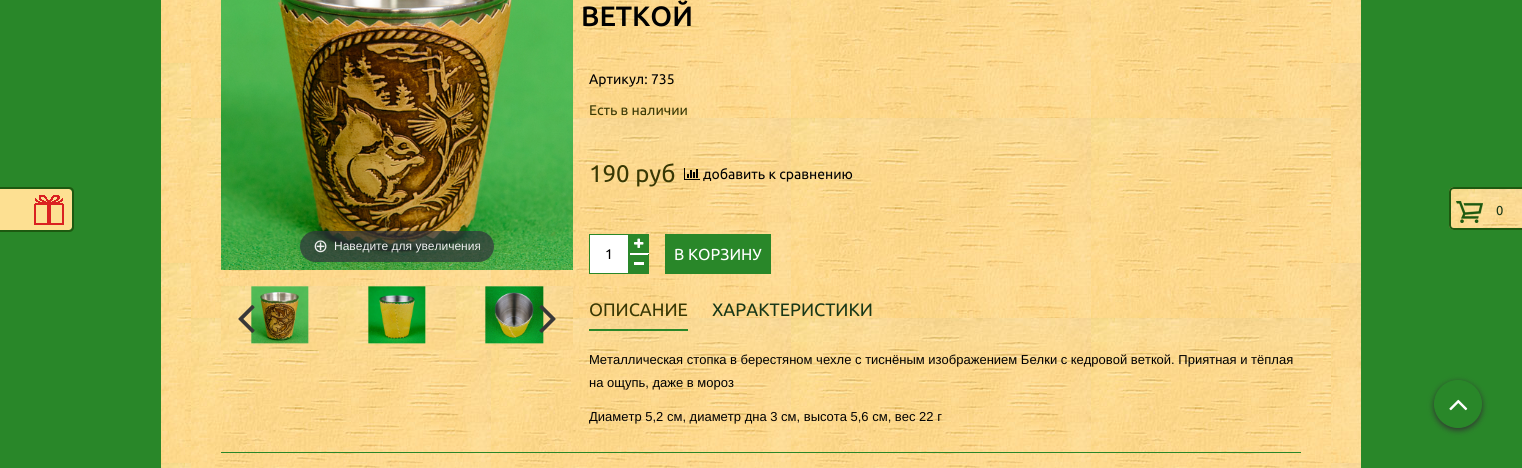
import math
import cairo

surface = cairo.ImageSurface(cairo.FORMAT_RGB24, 1522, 468)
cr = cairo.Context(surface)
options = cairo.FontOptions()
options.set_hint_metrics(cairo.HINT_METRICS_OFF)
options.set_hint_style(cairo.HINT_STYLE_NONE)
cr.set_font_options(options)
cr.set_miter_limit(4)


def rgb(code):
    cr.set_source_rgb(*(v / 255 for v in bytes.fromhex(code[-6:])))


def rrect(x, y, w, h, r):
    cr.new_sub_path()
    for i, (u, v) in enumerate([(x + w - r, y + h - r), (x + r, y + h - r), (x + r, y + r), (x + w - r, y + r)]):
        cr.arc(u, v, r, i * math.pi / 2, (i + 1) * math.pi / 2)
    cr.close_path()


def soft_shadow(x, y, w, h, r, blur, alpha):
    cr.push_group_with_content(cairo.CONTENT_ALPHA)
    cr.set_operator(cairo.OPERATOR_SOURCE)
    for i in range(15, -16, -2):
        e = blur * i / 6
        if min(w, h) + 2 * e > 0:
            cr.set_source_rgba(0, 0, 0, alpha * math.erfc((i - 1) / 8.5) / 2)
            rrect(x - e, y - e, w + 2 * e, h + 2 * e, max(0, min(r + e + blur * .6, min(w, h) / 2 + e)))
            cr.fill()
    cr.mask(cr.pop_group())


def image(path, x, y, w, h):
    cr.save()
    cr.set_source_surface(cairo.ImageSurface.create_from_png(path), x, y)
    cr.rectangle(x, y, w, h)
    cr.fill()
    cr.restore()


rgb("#298729")
cr.paint()
rgb("#fde092")
cr.new_path()
cr.move_to(-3, 189)
cr.line_to(69, 189)
cr.curve_to(70.5, 189, 72, 190.5, 72, 192)
cr.line_to(72, 227)
cr.curve_to(72, 228.5, 70.5, 230, 69, 230)
cr.line_to(-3, 230)
cr.close_path()
cr.fill()
image("img/1.png", 34, 195, 30, 30)
rgb("#1d5910")
cr.set_fill_rule(cairo.FILL_RULE_EVEN_ODD)
cr.new_path()
cr.move_to(-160, 187)
cr.line_to(69, 187)
cr.curve_to(72, 187, 74, 189, 74, 192)
cr.line_to(74, 227)
cr.curve_to(74, 230, 72, 232, 69, 232)
cr.line_to(-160, 232)
cr.close_path()
cr.move_to(-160, 189)
cr.line_to(69, 189)
cr.curve_to(71, 189, 72, 190, 72, 192)
cr.line_to(72, 227)
cr.curve_to(72, 229, 71, 230, 69, 230)
cr.line_to(-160, 230)
cr.close_path()
cr.fill()
image("img/2.png", 161, 0, 1200, 468)
image("img/3.png", 191, 0, 1140, 468)
image("img/4.png", 221, 0, 352, 270)
cr.set_source_rgba(0.192, 0.2, 0.239, 0.7)
rrect(300, 231, 194, 31, 15.5)
cr.fill()
image("img/5.png", 221, 286, 117, 64)
image("img/6.png", 251, 286, 58, 58)
image("img/7.png", 338, 286, 118, 64)
image("img/8.png", 368, 286, 58, 58)
image("img/5.png", 456, 286, 117, 64)
image("img/9.png", 485, 286, 59, 58)
image("img/10.png", 238, 305, 17, 28)
image("img/11.png", 539, 305, 17, 28)
image("img/12.png", 684, 168, 16, 12)
for x, y, w, h, color in [
    (630, 255, 18, 19, "#298729"),
    (629, 253, 20, 2, "#ffffff"),
    (648, 254, 1, 20, "#298729"),
    (629, 234, 1, 40, "#298729"),
    (634, 262, 10, 3, "#ffffff"),
    (630, 234, 19, 19, "#298729"),
]:
    rgb(color)
    cr.rectangle(x, y, w, h)
    cr.fill()
image("img/13.png", 634, 238, 10, 10)
rgb("#ffffff")
cr.rectangle(589.5, 234.5, 39, 39)
cr.fill_preserve()
rgb("#298729")
cr.set_line_width(1)
cr.stroke()
for x, y, w, h, color in [
    (665, 234, 106, 40, "#298729"),
    (589, 329, 99, 2, "#298729"),
    (221, 452, 1080, 1, "#298729"),
]:
    rgb(color)
    cr.rectangle(x, y, w, h)
    cr.fill()
image("img/14.png", 1449, 187, 73, 43)
rgb("#1d5910")
cr.new_path()
cr.move_to(1454, 187)
cr.line_to(1522, 187)
cr.line_to(1522, 230)
cr.line_to(1454, 230)
cr.curve_to(1451, 230, 1449, 228, 1449, 225)
cr.line_to(1449, 192)
cr.curve_to(1449, 189, 1451, 187, 1454, 187)
cr.close_path()
cr.move_to(1454, 189)
cr.line_to(1522, 189)
cr.line_to(1522, 228)
cr.line_to(1454, 228)
cr.curve_to(1452, 228, 1451, 227, 1451, 225)
cr.line_to(1451, 192)
cr.curve_to(1451, 190, 1452, 189, 1454, 189)
cr.close_path()
cr.fill()
image("img/15.png", 1456, 201, 27, 22)
rgb("#333333")
soft_shadow(1434, 382, 48, 48, 24, 3, 1)
rgb("#298729")
cr.arc(1458, 404, 23.5, 0, 2 * math.pi)
cr.fill_preserve()
cr.stroke()
image("img/16.png", 1449, 399, 19, 12)
cr.select_font_face("Ubuntu Medium")
cr.set_font_size(28)
rgb("#000000")
cr.move_to(581, 26)
cr.show_text("ВЕТКОЙ")
cr.select_font_face("DejaVu Sans")
cr.set_font_size(18)
rgb("#eeeeee")
cr.move_to(313, 252)
cr.show_text("⊕")
cr.select_font_face("Liberation Sans")
cr.set_font_size(12)
cr.move_to(334, 250)
cr.show_text("Наведите для увеличения")
cr.select_font_face("Ubuntu")
cr.set_font_size(14)
rgb("#000000")
cr.move_to(589, 84)
cr.show_text("Артикул: 735")
rgb("#383804")
cr.move_to(589, 115)
cr.show_text("Есть в наличии")
cr.set_font_size(24)
cr.move_to(589, 182)
cr.show_text("190 руб")
cr.set_font_size(14)
rgb("#000000")
cr.move_to(703, 179)
cr.show_text("добавить к сравнению")
cr.move_to(605, 259)
cr.show_text("1")
cr.set_font_size(16)
rgb("#ffffff")
cr.move_to(674, 260)
cr.show_text("В КОРЗИНУ")
cr.set_font_size(18)
rgb("#383804")
cr.move_to(589, 316)
cr.show_text("ОПИСАНИЕ")
rgb("#193818")
cr.move_to(712, 316)
cr.show_text("ХАРАКТЕРИСТИКИ")
cr.select_font_face("Liberation Sans")
cr.set_font_size(13)
rgb("#000000")
for x, y, s in [
    (589, 364, "Металлическая стопка в берестяном чехле с тиснёным изображением Белки с кедровой веткой. Приятная и тёплая"),
    (589, 387, "на ощупь, даже в мороз"),
    (589, 421, "Диаметр 5,2 см, диаметр дна 3 см, высота 5,6 см, вес 22 г"),
]:
    cr.move_to(x, y)
    cr.show_text(s)
cr.select_font_face("Ubuntu")
rgb("#193818")
cr.move_to(1496, 215)
cr.show_text("0")
surface.write_to_png("page.png")
